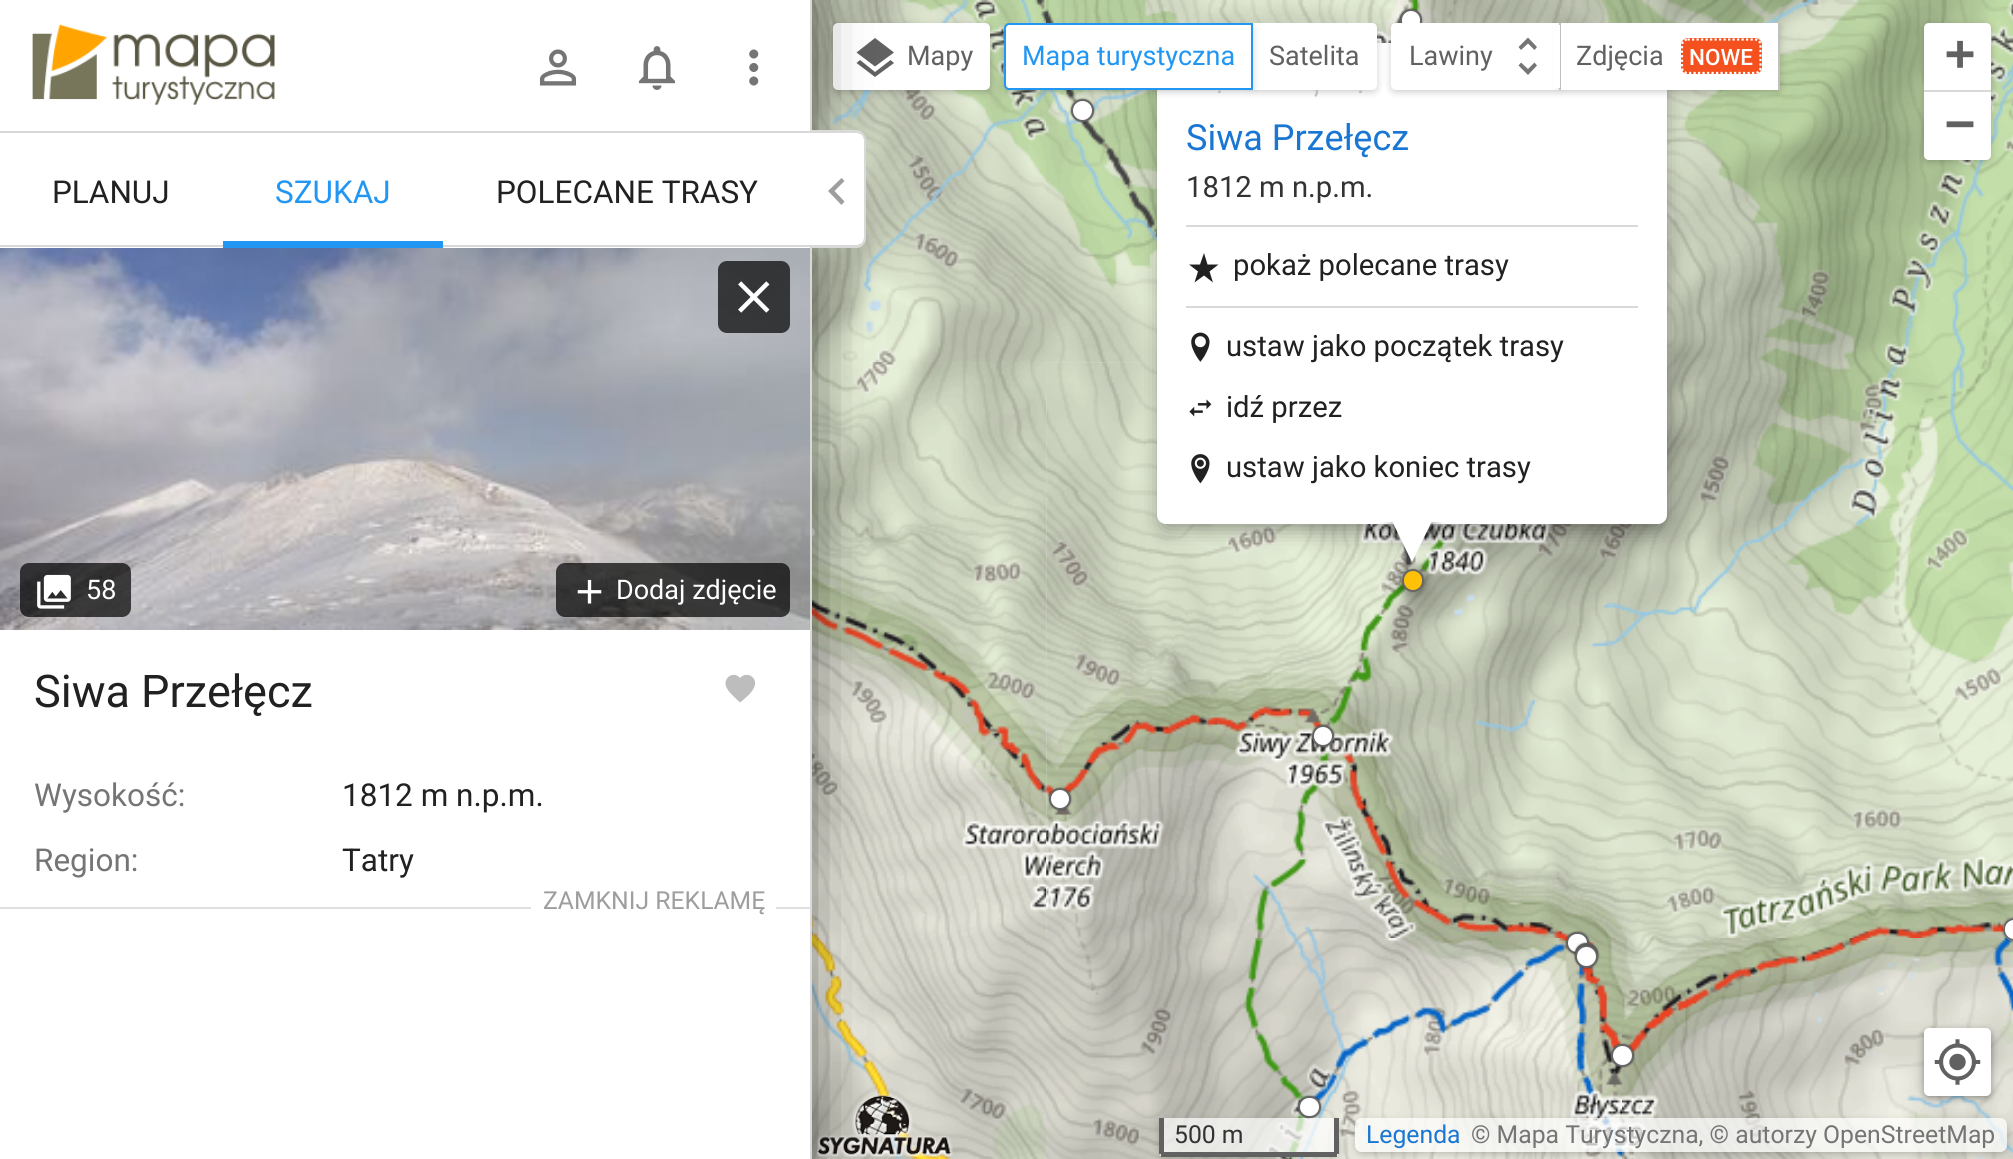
import math
import cairo

surface = cairo.ImageSurface(cairo.FORMAT_RGB24, 2013, 1159)
cr = cairo.Context(surface)
options = cairo.FontOptions()
options.set_hint_metrics(cairo.HINT_METRICS_OFF)
options.set_hint_style(cairo.HINT_STYLE_NONE)
cr.set_font_options(options)
cr.set_miter_limit(4)


def rgb(code):
    cr.set_source_rgb(*(v / 255 for v in bytes.fromhex(code[-6:])))


def rrect(x, y, w, h, r):
    cr.new_sub_path()
    for i, (u, v) in enumerate([(x + w - r, y + h - r), (x + r, y + h - r), (x + r, y + r), (x + w - r, y + r)]):
        cr.arc(u, v, r, i * math.pi / 2, (i + 1) * math.pi / 2)
    cr.close_path()


def soft_shadow(x, y, w, h, r, blur, alpha):
    cr.push_group_with_content(cairo.CONTENT_ALPHA)
    cr.set_operator(cairo.OPERATOR_SOURCE)
    for i in range(15, -16, -2):
        e = blur * i / 6
        if min(w, h) + 2 * e > 0:
            cr.set_source_rgba(0, 0, 0, alpha * math.erfc((i - 1) / 8.5) / 2)
            rrect(x - e, y - e, w + 2 * e, h + 2 * e, max(0, min(r + e + blur * .6, min(w, h) / 2 + e)))
            cr.fill()
    cr.mask(cr.pop_group())


def image(path, x, y, w, h):
    cr.save()
    cr.set_source_surface(cairo.ImageSurface.create_from_png(path), x, y)
    cr.rectangle(x, y, w, h)
    cr.fill()
    cr.restore()


rgb("#dddddd")
cr.paint()
image("img/11.png", 812, 0, 234, 362)
rgb("#000000")
soft_shadow(835, 27, 153, 63, 2, 4.5, 0.3)
rgb("#ffffff")
rrect(833, 23, 157, 67, 5)
cr.fill()
rgb("#616161")
cr.new_path()
cr.move_to(875, 66.5)
cr.line_to(856.5, 52.5)
cr.line_to(875, 38)
cr.line_to(894, 52.5)
cr.close_path()
cr.move_to(875, 72)
cr.line_to(890.5, 60)
cr.line_to(894, 63)
cr.line_to(875, 77)
cr.line_to(856.5, 63)
cr.line_to(860, 60)
cr.close_path()
cr.fill()
image("img/17.png", 812, 938, 234, 221)
image("img/9.png", 816, 1093, 137, 64)
image("img/14.png", 812, 362, 234, 576)
rgb("#000000")
soft_shadow(-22, 0, 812, 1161, 0, 34, 1)
for x, y, w, h, color in [
    (0, 0, 810, 1159, "#ffffff"),
    (810, 0, 2, 1159, "#d9d9d9"),
    (0, 131, 810, 2, "#d9d9d9"),
]:
    rgb(color)
    cr.rectangle(x, y, w, h)
    cr.fill()
image("img/1.png", 32, 24, 243, 81)
image("img/2.png", 539, 49, 38, 37)
image("img/3.png", 638, 46, 38, 44)
image("img/4.png", 749, 49, 10, 37)
cr.rectangle(0, 245, 810, 2)
cr.fill()
rgb("#2196f3")
cr.rectangle(223, 241, 220, 7)
cr.fill()
image("img/6.png", 0, 248, 810, 382)
cr.set_source_rgba(0, 0, 0, 0.7)
rrect(718, 261, 72, 72, 9)
cr.fill()
image("img/5.png", 738, 281, 32, 32)
rrect(20, 563, 111, 54, 9)
cr.fill()
image("img/7.png", 37, 574, 34, 35)
rrect(556, 563, 234, 54, 9)
cr.fill()
image("img/8.png", 577, 579, 25, 25)
rgb("#bdbdbd")
cr.new_path()
cr.move_to(740, 702.5)
cr.curve_to(736, 698.5, 729, 693, 726.5, 687.5)
cr.curve_to(722, 678.5, 733.5, 670, 740, 678)
cr.curve_to(746.5, 670.5, 758, 677.5, 754.5, 686.5)
cr.curve_to(752, 693, 745.5, 698, 740, 702.5)
cr.close_path()
cr.fill()
rgb("#ffffff")
cr.new_path()
cr.move_to(810, 133)
cr.line_to(857, 133)
cr.curve_to(861, 133, 864, 136, 864, 140)
cr.line_to(864, 238)
cr.curve_to(864, 242, 861, 245, 857, 245)
cr.line_to(810, 245)
cr.close_path()
cr.fill()
rgb("#d9d9d9")
cr.set_fill_rule(cairo.FILL_RULE_EVEN_ODD)
cr.new_path()
cr.move_to(810, 130)
cr.line_to(857, 130)
cr.curve_to(862, 130, 866, 135, 866, 140)
cr.line_to(866, 238)
cr.curve_to(866, 243, 862, 248, 857, 248)
cr.line_to(810, 248)
cr.close_path()
cr.move_to(810, 133)
cr.line_to(857, 133)
cr.curve_to(861, 133, 864, 136, 864, 140)
cr.line_to(864, 238)
cr.curve_to(864, 242, 861, 245, 857, 245)
cr.line_to(810, 245)
cr.close_path()
cr.fill()
rgb("#9e9e9e")
cr.set_fill_rule(cairo.FILL_RULE_WINDING)
cr.new_path()
cr.move_to(844.5, 181)
cr.line_to(834.5, 191)
cr.line_to(844.5, 201.5)
cr.line_to(841.5, 205)
cr.line_to(828, 191)
cr.line_to(841.5, 178)
cr.close_path()
cr.fill()
rgb("#e0e0e0")
cr.rectangle(0, 907, 810, 2)
cr.fill()
rgb("#ffffff")
cr.rectangle(531, 907, 245, 2)
cr.fill()
image("img/12.png", 1046, 0, 576, 362)
image("img/13.png", 1622, 0, 391, 362)
image("img/15.png", 1046, 362, 576, 576)
image("img/16.png", 1622, 362, 391, 576)
rgb("#000000")
soft_shadow(1400, 9, 22, 23, 11, 1, 0.5)
rgb("#ffffff")
rrect(1401, 10, 20, 21, 10)
cr.fill_preserve()
rgb("#666666")
cr.stroke()
rgb("#000000")
soft_shadow(1161, 56, 502, 473, 5, 11, 0.4)
rgb("#ffffff")
rrect(1157, 43, 510, 481, 9)
cr.fill()
cr.save()
cr.rectangle(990, 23, 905, 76)
cr.clip()
rgb("#000000")
soft_shadow(1253, 27, 122, 63, 2, 4.5, 0.3)
cr.restore()
cr.new_path()
cr.move_to(1251, 23)
cr.line_to(1372, 23)
cr.curve_to(1375, 23, 1377, 25, 1377, 28)
cr.line_to(1377, 85)
cr.curve_to(1377, 88, 1375, 90, 1372, 90)
cr.line_to(1251, 90)
cr.close_path()
cr.fill()
rgb("#000000")
soft_shadow(1071, 99, 23, 23, 11.5, 1, 0.5)
rgb("#ffffff")
cr.arc(1082.5, 110.5, 10.5, 0, 2 * math.pi)
cr.fill_preserve()
rgb("#666666")
cr.stroke()
cr.save()
cr.rectangle(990, 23, 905, 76)
cr.clip()
rgb("#000000")
soft_shadow(1006, 27, 245, 63, 2, 4.5, 0.3)
cr.restore()
rgb("#ffffff")
cr.new_path()
cr.move_to(1009, 24)
cr.line_to(1252, 24)
cr.line_to(1252, 89)
cr.line_to(1009, 89)
cr.curve_to(1007, 89, 1005, 87, 1005, 85)
cr.line_to(1005, 28)
cr.curve_to(1005, 26, 1007, 24, 1009, 24)
cr.close_path()
cr.fill_preserve()
rgb("#2196f3")
cr.stroke()
cr.save()
cr.rectangle(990, 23, 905, 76)
cr.clip()
rgb("#000000")
soft_shadow(1393, 27, 166, 63, 2, 4.5, 0.3)
cr.restore()
rgb("#ffffff")
cr.new_path()
cr.move_to(1396, 23)
cr.line_to(1562, 23)
cr.line_to(1562, 90)
cr.line_to(1396, 90)
cr.curve_to(1393, 90, 1391, 88, 1391, 85)
cr.line_to(1391, 28)
cr.curve_to(1391, 25, 1393, 23, 1396, 23)
cr.close_path()
cr.fill()
cr.save()
cr.rectangle(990, 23, 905, 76)
cr.clip()
rgb("#000000")
soft_shadow(1562, 27, 216, 63, 0, 4.5, 0.3)
cr.restore()
rgb("#c0c0c0")
cr.rectangle(1559, 23, 2, 67)
cr.fill()
rgb("#757575")
cr.new_path()
cr.move_to(1528, 69)
cr.line_to(1534.5, 62.5)
cr.line_to(1537, 65.5)
cr.line_to(1528, 75)
cr.line_to(1518.5, 65.5)
cr.line_to(1521, 62.5)
cr.close_path()
cr.move_to(1528, 43.5)
cr.line_to(1521, 50)
cr.line_to(1518.5, 47)
cr.line_to(1528, 37.5)
cr.line_to(1537, 47)
cr.line_to(1534.5, 50)
cr.close_path()
cr.fill()
rgb("#ffffff")
cr.rectangle(1554, 25, 6, 63)
cr.fill()
cr.rectangle(1561, 23, 217, 67)
cr.fill()
rgb("#f4511e")
rrect(1681, 38, 81, 36, 7)
cr.fill()
cr.new_path()
cr.move_to(1687.5, 39.5)
cr.line_to(1755, 39.5)
cr.curve_to(1758, 39.5, 1760.5, 42, 1760.5, 45)
cr.line_to(1760.5, 67.5)
cr.curve_to(1760.5, 70.5, 1758, 73, 1755, 73)
cr.line_to(1687.5, 73)
cr.curve_to(1684.5, 73, 1682, 70.5, 1682, 67.5)
cr.line_to(1682, 45)
cr.curve_to(1682, 42, 1684.5, 39.5, 1687.5, 39.5)
cr.close_path()
rgb("#ffffff")
cr.set_line_width(2.2)
cr.set_dash([2.25, 2.25])
cr.stroke()
rgb("#c0c0c0")
cr.rectangle(1778, 23, 2, 67)
cr.fill()
rgb("#000000")
soft_shadow(1926, 27, 63, 133, 2, 4.5, 0.3)
rgb("#ffffff")
cr.new_path()
cr.move_to(1929, 23)
cr.line_to(1986, 23)
cr.curve_to(1989, 23, 1991, 25, 1991, 28)
cr.line_to(1991, 92)
cr.line_to(1924, 92)
cr.line_to(1924, 28)
cr.curve_to(1924, 25, 1926, 23, 1929, 23)
cr.close_path()
cr.fill()
rgb("#d9d9d9")
cr.rectangle(1924, 90, 67, 2)
cr.fill()
rgb("#ffffff")
cr.new_path()
cr.move_to(1924, 92)
cr.line_to(1991, 92)
cr.line_to(1991, 155)
cr.curve_to(1991, 158, 1989, 160, 1986, 160)
cr.line_to(1929, 160)
cr.curve_to(1926, 160, 1924, 158, 1924, 155)
cr.close_path()
cr.fill()
image("img/19.png", 1622, 938, 391, 221)
rgb("#000000")
soft_shadow(1926, 1033, 63, 63, 2, 4.5, 0.3)
soft_shadow(1926, 1033, 63, 63, 2, 4.5, 0.3)
rgb("#ffffff")
rrect(1924, 1028, 67, 68, 5)
cr.fill()
image("img/10.png", 1934, 1039, 47, 46)
image("img/18.png", 1046, 938, 576, 221)
rgb("#000000")
soft_shadow(1298, 1096, 23, 22, 11, 1, 0.5)
rgb("#ffffff")
rrect(1299, 1097, 21, 20, 10)
cr.fill_preserve()
rgb("#666666")
cr.set_line_width(2)
cr.set_dash([])
cr.stroke()
cr.save()
cr.set_fill_rule(cairo.FILL_RULE_EVEN_ODD)
cr.new_path()
cr.move_to(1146, 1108)
cr.line_to(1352, 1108)
cr.line_to(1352, 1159)
cr.line_to(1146, 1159)
cr.close_path()
cr.move_to(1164, 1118)
cr.line_to(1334, 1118)
cr.curve_to(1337, 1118, 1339, 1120, 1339, 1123)
cr.line_to(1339, 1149)
cr.curve_to(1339, 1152, 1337, 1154, 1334, 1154)
cr.line_to(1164, 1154)
cr.curve_to(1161, 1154, 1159, 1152, 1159, 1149)
cr.line_to(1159, 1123)
cr.curve_to(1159, 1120, 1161, 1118, 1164, 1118)
cr.close_path()
cr.clip()
rgb("#000000")
soft_shadow(1161, 1123, 176, 31, 2, 4.5, 0.3)
cr.restore()
cr.set_source_rgba(1, 1, 1, 0.7)
cr.new_path()
cr.move_to(1159, 1118)
cr.line_to(1339, 1118)
cr.line_to(1339, 1152)
cr.curve_to(1339, 1155, 1337, 1157, 1334, 1157)
cr.line_to(1164, 1157)
cr.curve_to(1161, 1157, 1159, 1155, 1159, 1152)
cr.close_path()
cr.fill()
for x, y, w, h, color in [
    (1334, 1118, 5, 36, "#616161"),
    (1161, 1152, 176, 5, "#616161"),
    (1159, 1118, 5, 36, "#616161"),
]:
    rgb(color)
    cr.rectangle(x, y, w, h)
    cr.fill()
cr.save()
cr.set_fill_rule(cairo.FILL_RULE_EVEN_ODD)
cr.new_path()
cr.move_to(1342, 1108)
cr.line_to(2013, 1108)
cr.line_to(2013, 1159)
cr.line_to(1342, 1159)
cr.close_path()
cr.move_to(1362, 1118)
cr.line_to(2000, 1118)
cr.curve_to(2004, 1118, 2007, 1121, 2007, 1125)
cr.line_to(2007, 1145)
cr.curve_to(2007, 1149, 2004, 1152, 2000, 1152)
cr.line_to(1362, 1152)
cr.curve_to(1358, 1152, 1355, 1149, 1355, 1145)
cr.line_to(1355, 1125)
cr.curve_to(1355, 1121, 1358, 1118, 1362, 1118)
cr.close_path()
cr.clip()
rgb("#000000")
soft_shadow(1357, 1123, 648, 29, 5, 4.5, 0.3)
cr.restore()
cr.set_source_rgba(1, 1, 1, 0.7)
rrect(1355, 1118, 652, 34, 7)
cr.fill()
rgb("#000000")
soft_shadow(1402, 569, 22, 23, 11, 7, 0.5)
rgb("#ffc107")
rrect(1403, 570, 20, 21, 10)
cr.fill_preserve()
rgb("#666666")
cr.stroke()
rgb("#000000")
soft_shadow(1312, 725, 22, 22, 11, 1, 0.5)
rgb("#ffffff")
cr.arc(1323, 736, 10, 0, 2 * math.pi)
cr.fill_preserve()
rgb("#666666")
cr.stroke()
rgb("#000000")
soft_shadow(1049, 788, 22, 22, 11, 1, 0.5)
rgb("#ffffff")
cr.arc(1060, 799, 10, 0, 2 * math.pi)
cr.fill_preserve()
rgb("#666666")
cr.stroke()
rgb("#000000")
soft_shadow(1566, 932, 23, 22, 11, 1, 0.5)
rgb("#ffffff")
rrect(1567, 933, 21, 20, 10)
cr.fill_preserve()
rgb("#666666")
cr.stroke()
rgb("#000000")
soft_shadow(2003, 918, 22, 23, 11, 1, 0.5)
rgb("#ffffff")
cr.new_path()
cr.move_to(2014, 918)
cr.line_to(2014, 941)
cr.curve_to(2008, 941, 2003, 936, 2003, 930)
cr.line_to(2003, 929)
cr.curve_to(2003, 923, 2008, 918, 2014, 918)
cr.close_path()
cr.fill()
rrect(2004, 919, 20, 21, 10)
rgb("#666666")
cr.stroke()
rgb("#000000")
soft_shadow(1575, 943, 23, 22, 11, 1, 0.5)
rrect(1576, 944, 21, 20, 10)
rgb("#666666")
cr.stroke()
rgb("#000000")
soft_shadow(1575, 945, 23, 23, 11.5, 1, 0.5)
rgb("#ffffff")
cr.arc(1586.5, 956.5, 10.5, 0, 2 * math.pi)
cr.fill_preserve()
rgb("#666666")
cr.stroke()
rgb("#000000")
soft_shadow(1611, 1044, 23, 23, 11.5, 1, 0.5)
rgb("#ffffff")
cr.arc(1622.5, 1055.5, 10.5, 0, 2 * math.pi)
cr.fill_preserve()
rgb("#666666")
cr.stroke()
rgb("#d9d9d9")
cr.rectangle(1186, 225, 452, 2)
cr.fill()
rgb("#212121")
cr.new_path()
cr.move_to(1207.5, 264.5)
cr.line_to(1204, 253)
cr.line_to(1200, 264.5)
cr.line_to(1189, 264.5)
cr.line_to(1198, 271.5)
cr.line_to(1194.5, 282.5)
cr.line_to(1204, 275.5)
cr.line_to(1213, 282.5)
cr.line_to(1209.5, 271.5)
cr.line_to(1218.5, 264.5)
cr.close_path()
cr.fill()
rgb("#d9d9d9")
cr.rectangle(1186, 306, 452, 2)
cr.fill()
image("img/20.png", 1191, 332, 19, 30)
image("img/21.png", 1189, 399, 23, 18)
image("img/22.png", 1191, 454, 19, 30)
cr.save()
cr.rectangle(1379, 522, 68, 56)
cr.clip()
rgb("#000000")
soft_shadow(1397, 502, 32, 31, 0, 8, 0.7)
cr.restore()
cr.save()
cr.rectangle(1379, 522, 68, 56)
cr.clip()
rgb("#ffffff")
cr.new_path()
cr.move_to(1412, 473)
cr.line_to(1434, 517)
cr.line_to(1412, 562)
cr.line_to(1390, 517)
cr.close_path()
cr.fill()
cr.restore()
cr.select_font_face("Roboto")
cr.set_font_size(31.5)
rgb("#212121")
cr.move_to(52, 203)
cr.show_text("PLANUJ")
rgb("#2196f3")
cr.move_to(275, 203)
cr.show_text("SZUKAJ")
rgb("#212121")
cr.move_to(496, 203)
cr.show_text("POLECANE TRASY")
cr.set_font_size(27)
rgb("#ffffff")
cr.move_to(86, 599)
cr.show_text("58")
cr.move_to(616, 599)
cr.show_text("Dodaj zdjęcie")
cr.set_font_size(45)
rgb("#212121")
cr.move_to(34, 707)
cr.show_text("Siwa Przełęcz")
cr.set_font_size(31.5)
rgb("#757575")
cr.move_to(34, 806)
cr.show_text("Wysokość:")
rgb("#212121")
cr.move_to(342, 806)
cr.show_text("1812 m n.p.m.")
rgb("#757575")
cr.move_to(34, 871)
cr.show_text("Region:")
rgb("#212121")
cr.move_to(342, 871)
cr.show_text("Tatry")
cr.set_font_size(24.75)
rgb("#9e9e9e")
cr.move_to(543, 909)
cr.show_text("ZAMKNIJ REKLAMĘ")
cr.set_font_size(27)
rgb("#616161")
cr.move_to(907, 65)
cr.show_text("Mapy")
rgb("#2196f3")
cr.move_to(1022, 65)
cr.show_text("Mapa turystyczna")
rgb("#616161")
for x, y, s in [
    (1269, 65, "Satelita"),
    (1409, 65, "Lawiny"),
    (1576, 65, "Zdjęcia"),
]:
    cr.move_to(x, y)
    cr.show_text(s)
cr.select_font_face("Roboto Medium")
cr.set_font_size(22.5)
rgb("#ffffff")
cr.move_to(1689, 65)
cr.show_text("NOWE")
cr.select_font_face("DejaVu Sans Mono", cairo.FONT_SLANT_NORMAL, cairo.FONT_WEIGHT_BOLD)
cr.set_font_size(50)
rgb("#616161")
cr.move_to(1945, 70)
cr.show_text("+")
cr.move_to(1945, 140)
cr.show_text("−")
cr.select_font_face("Roboto")
cr.set_font_size(24.75)
rgb("#333333")
cr.move_to(1174, 1143)
cr.show_text("500 m")
rgb("#1976d2")
cr.move_to(1366, 1143)
cr.show_text("Legenda")
rgb("#757575")
cr.move_to(1471, 1143)
cr.show_text("© Mapa Turystyczna, © autorzy OpenStreetMap")
cr.set_font_size(27)
rgb("#bdbdbd")
for x, y, s in [
    (1216, 93, "."),
    (1314, 93, ","),
    (1357, 93, "."),
]:
    cr.move_to(x, y)
    cr.show_text(s)
cr.set_font_size(36)
rgb("#1976d2")
cr.move_to(1186, 150)
cr.show_text("Siwa Przełęcz")
cr.set_font_size(29.25)
rgb("#333333")
cr.move_to(1186, 197)
cr.show_text("1812 m n.p.m.")
rgb("#212121")
for x, y, s in [
    (1233, 275, "pokaż polecane trasy"),
    (1226, 356, "ustaw jako początek trasy"),
    (1226, 417, "idź przez"),
    (1226, 477, "ustaw jako koniec trasy"),
]:
    cr.move_to(x, y)
    cr.show_text(s)
surface.write_to_png("page.png")
